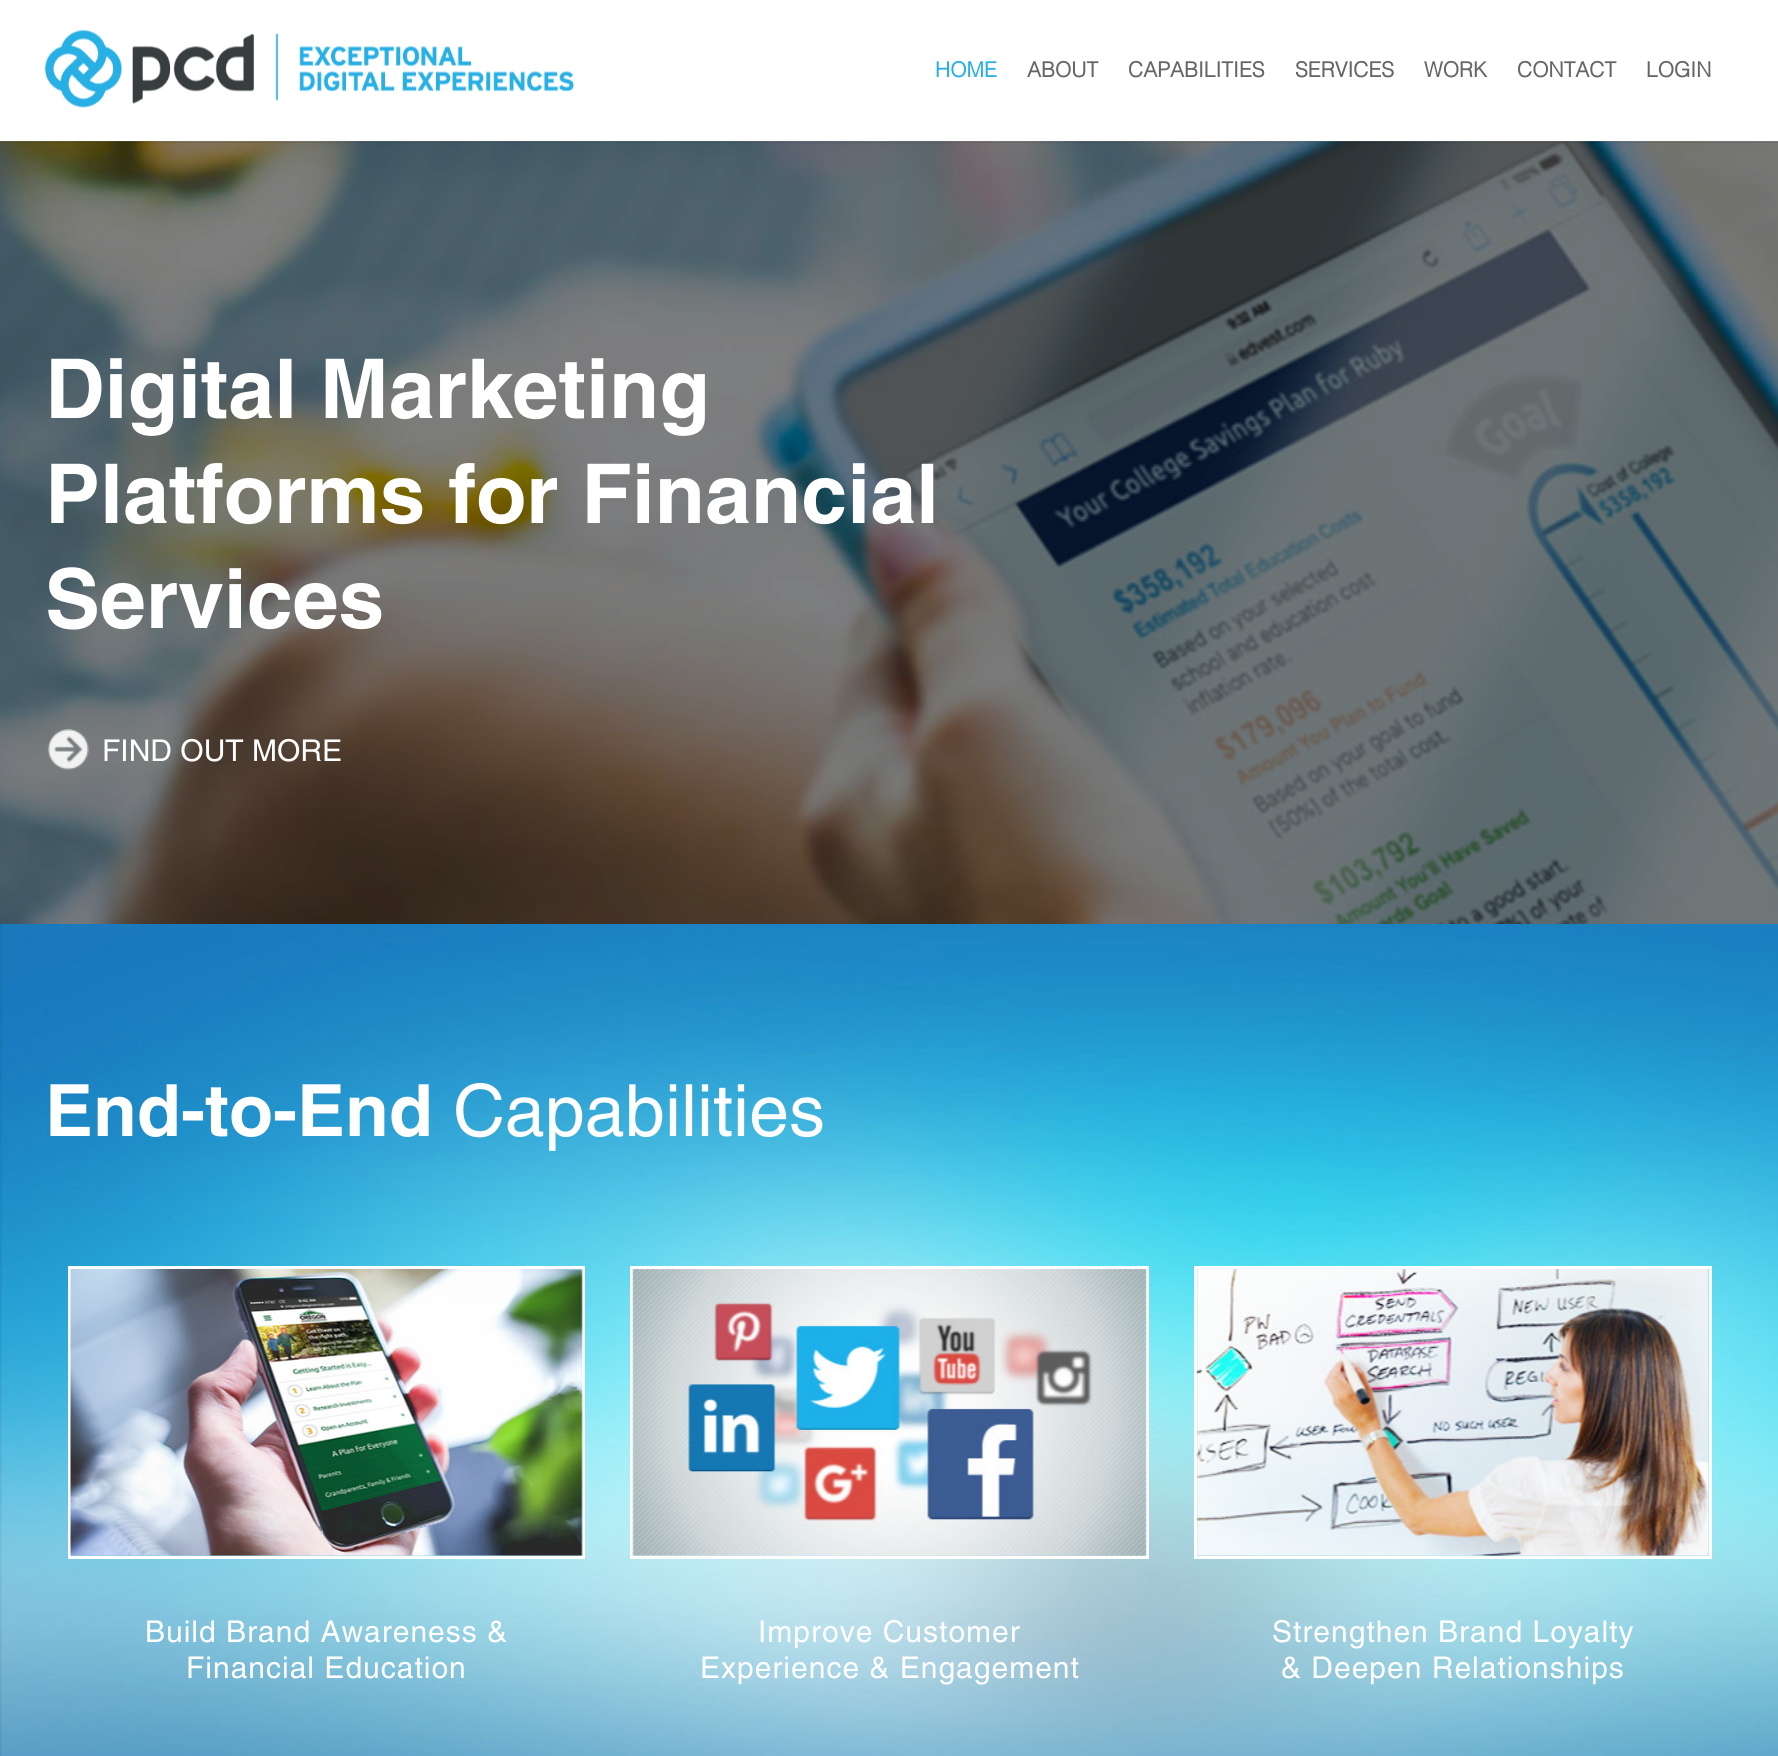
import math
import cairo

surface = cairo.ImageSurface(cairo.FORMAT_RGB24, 1778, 1756)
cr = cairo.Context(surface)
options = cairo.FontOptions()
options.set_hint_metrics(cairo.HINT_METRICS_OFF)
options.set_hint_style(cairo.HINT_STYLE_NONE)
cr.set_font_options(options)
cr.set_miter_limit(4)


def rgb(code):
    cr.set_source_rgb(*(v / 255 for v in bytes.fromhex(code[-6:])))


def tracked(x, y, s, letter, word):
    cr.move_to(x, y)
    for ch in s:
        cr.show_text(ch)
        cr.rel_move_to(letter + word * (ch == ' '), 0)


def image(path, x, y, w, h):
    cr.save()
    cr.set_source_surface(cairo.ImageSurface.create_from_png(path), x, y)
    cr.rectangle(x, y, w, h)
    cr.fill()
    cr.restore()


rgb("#ffffff")
cr.paint()
image("img/2.png", 0, 141, 1778, 783)
cr.set_source_rgba(0, 0, 0, 0.1)
cr.rectangle(0, 141, 1778, 2)
cr.fill()
cr.set_source_rgba(1, 1, 1, 0.1)
cr.rectangle(0, 141, 1778, 1)
cr.fill()
image("img/1.png", 45, 29, 529, 79)
image("img/3.png", 47, 729, 42, 41)
image("img/4.png", 0, 924, 1778, 832)
cr.rectangle(69.5, 1267.5, 514, 290)
rgb("#ffffff")
cr.set_line_width(3)
cr.stroke()
image("img/5.png", 70, 1269, 513, 287)
cr.rectangle(631.5, 1267.5, 516, 290)
cr.stroke()
image("img/6.png", 632, 1269, 515, 287)
cr.rectangle(1195.5, 1267.5, 515, 290)
cr.stroke()
image("img/7.png", 1196, 1269, 513, 287)
cr.select_font_face("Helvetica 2", cairo.FONT_SLANT_NORMAL, cairo.FONT_WEIGHT_BOLD)
cr.set_font_size(21)
rgb("#28afe4")
cr.move_to(935, 77)
cr.show_text("HOME")
rgb("#666666")
for x, y, s in [
    (1027, 77, "ABOUT"),
    (1128, 77, "CAPABILITIES"),
    (1295, 77, "SERVICES"),
    (1424, 77, "WORK"),
    (1517, 77, "CONTACT"),
    (1646, 77, "LOGIN"),
]:
    cr.move_to(x, y)
    cr.show_text(s)
cr.select_font_face("Helvetica", cairo.FONT_SLANT_NORMAL, cairo.FONT_WEIGHT_BOLD)
cr.set_font_size(82.5)
rgb("#ffffff")
for x, y, s in [
    (45, 418, "Digital Marketing"),
    (45, 523, "Platforms for Financial"),
    (45, 628, "Services"),
]:
    cr.move_to(x, y)
    cr.show_text(s)
cr.select_font_face("Helvetica")
cr.set_font_size(30)
cr.move_to(102, 761)
cr.show_text("FIND OUT MORE")
cr.select_font_face("Helvetica", cairo.FONT_SLANT_NORMAL, cairo.FONT_WEIGHT_BOLD)
cr.set_font_size(72)
cr.move_to(45, 1136)
cr.show_text("End-to-End")
cr.select_font_face("Helvetica")
cr.move_to(453, 1136)
cr.show_text("Capabilities")
cr.set_font_size(30)
for x, y, s in [
    (145, 1642, "Build Brand Awareness &"),
    (186, 1678, "Financial Education"),
    (758, 1642, "Improve Customer"),
    (700, 1678, "Experience & Engagement"),
    (1272, 1642, "Strengthen Brand Loyalty"),
    (1281, 1678, "& Deepen Relationships"),
]:
    tracked(x, y, s, 1, 0)
surface.write_to_png("page.png")
